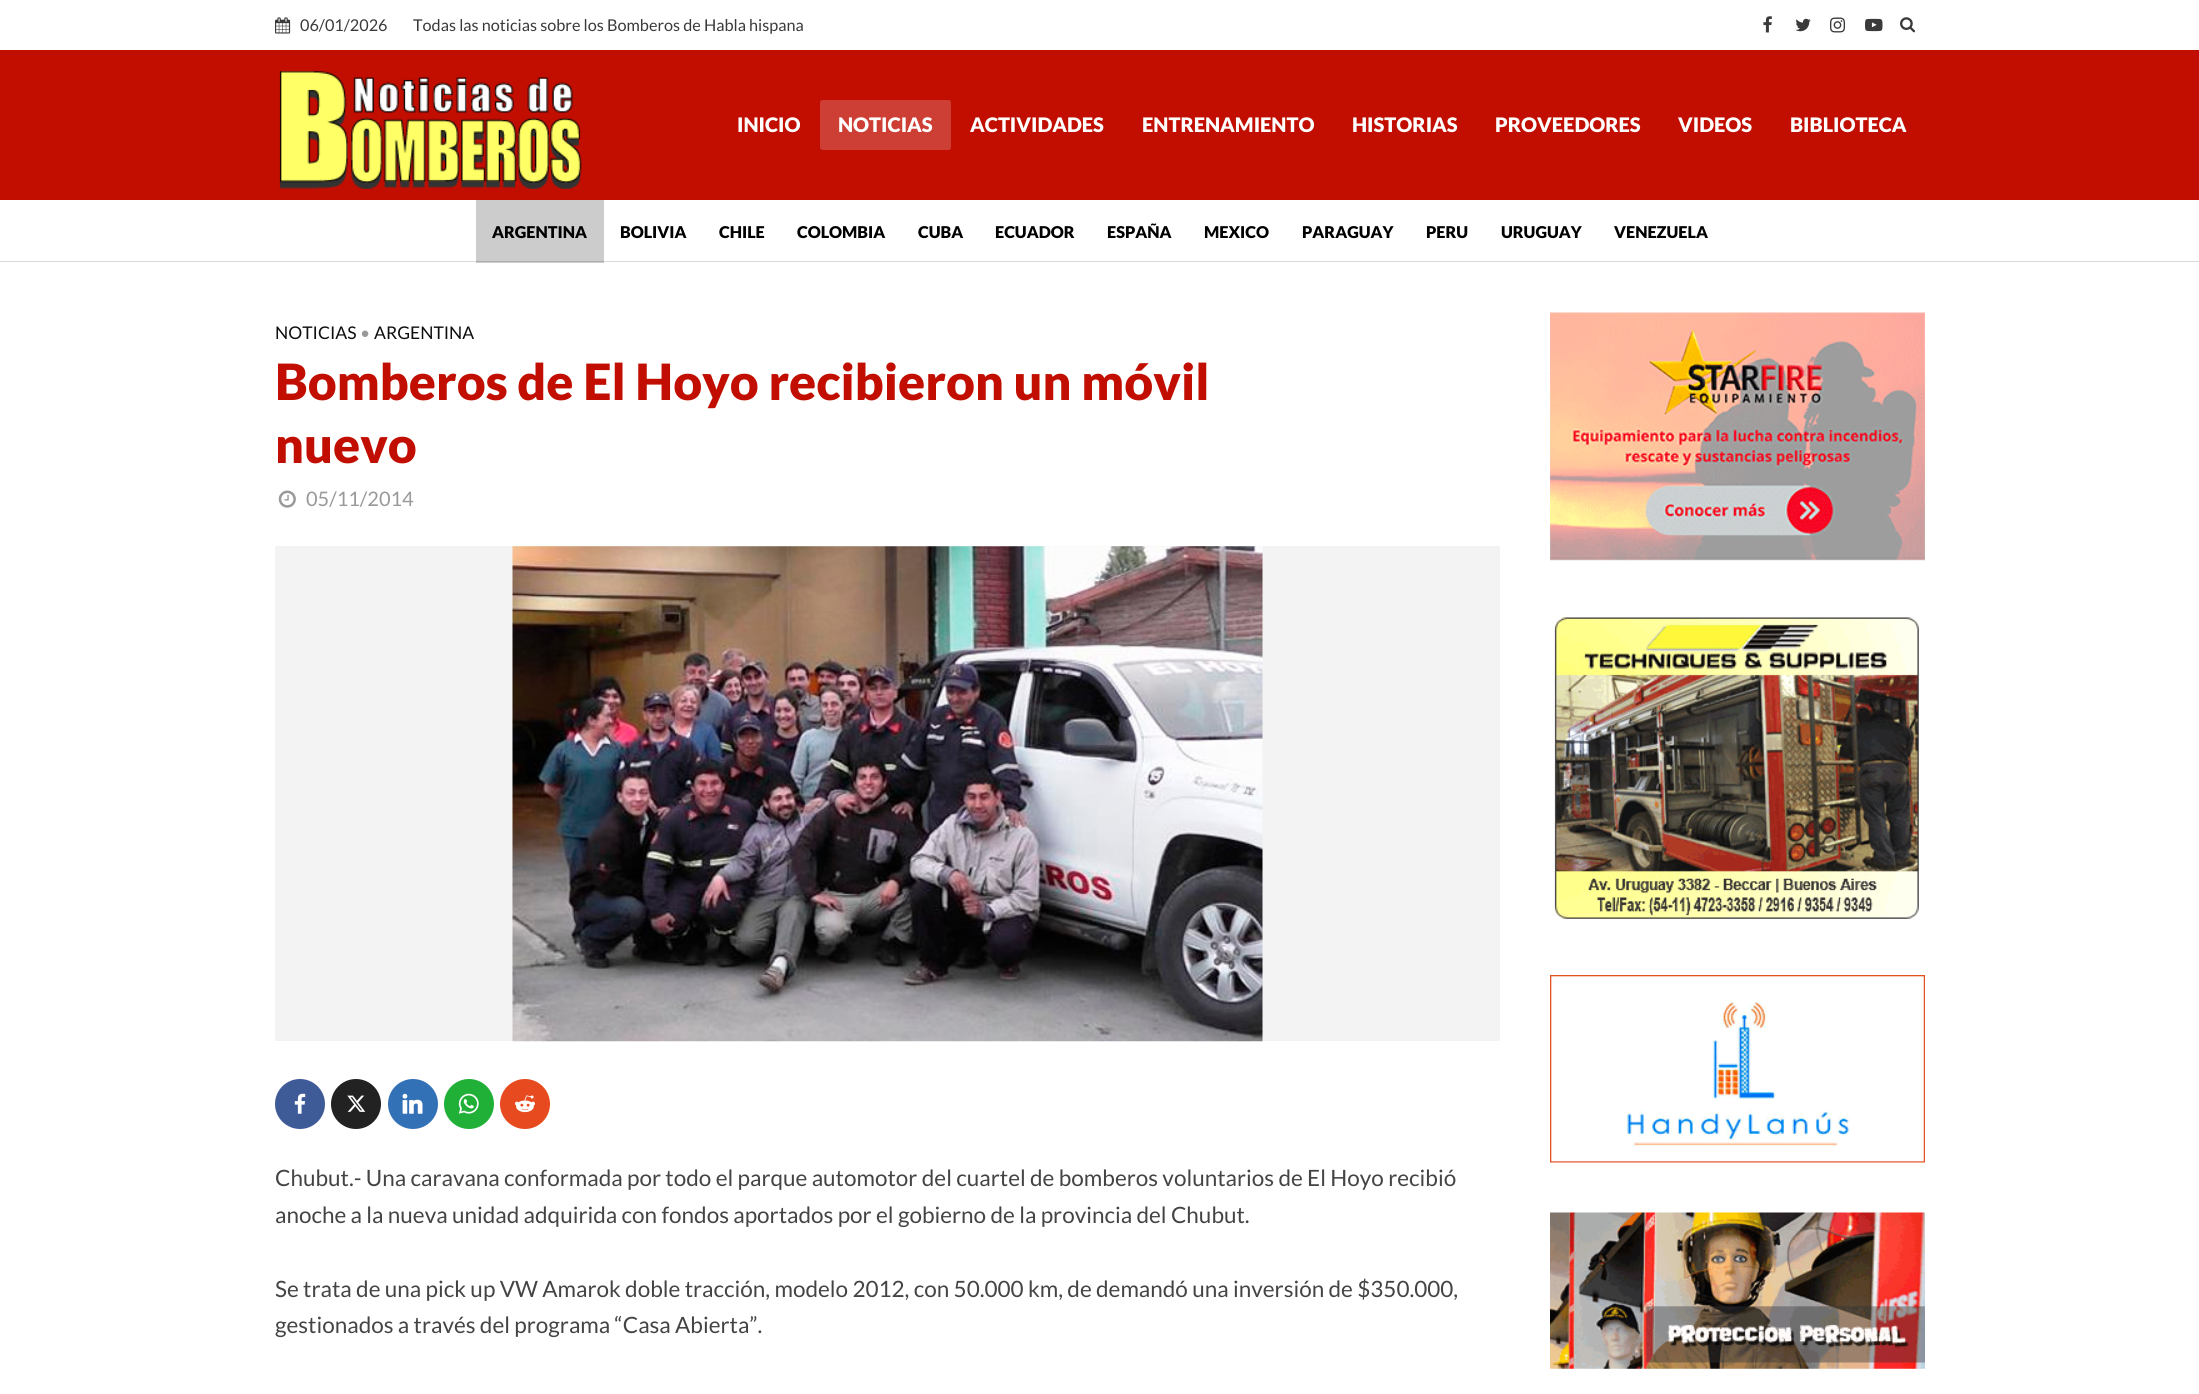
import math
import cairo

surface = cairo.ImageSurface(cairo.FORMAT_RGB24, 2199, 1394)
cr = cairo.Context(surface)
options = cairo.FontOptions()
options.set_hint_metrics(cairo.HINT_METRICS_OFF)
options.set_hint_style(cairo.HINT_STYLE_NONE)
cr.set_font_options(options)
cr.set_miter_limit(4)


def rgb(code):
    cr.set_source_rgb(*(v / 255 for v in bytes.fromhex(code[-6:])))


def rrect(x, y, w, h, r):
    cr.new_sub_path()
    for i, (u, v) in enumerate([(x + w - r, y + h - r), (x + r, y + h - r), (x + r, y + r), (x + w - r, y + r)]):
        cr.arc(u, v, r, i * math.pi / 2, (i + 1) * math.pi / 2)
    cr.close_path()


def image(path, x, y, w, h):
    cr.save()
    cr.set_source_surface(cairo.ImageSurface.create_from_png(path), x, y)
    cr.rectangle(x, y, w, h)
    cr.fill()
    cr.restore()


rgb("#ffffff")
cr.paint()
rgb("#cccccc")
cr.rectangle(476, 200, 128, 63)
cr.fill()
image("img/1.png", 275, 17, 16, 17)
image("img/2.png", 1763, 16, 9, 17)
image("img/3.png", 1795, 18, 16, 14)
image("img/4.png", 1830, 17, 15, 16)
image("img/5.png", 1865, 18, 18, 14)
image("img/6.png", 1900, 17, 16, 16)
rgb("#c10e01")
cr.rectangle(0, 50, 2199, 150)
cr.fill()
image("img/7.png", 279, 71, 303, 118)
rgb("#cd3e34")
rrect(820, 100, 131, 50, 2.5)
cr.fill()
rgb("#d9d9d9")
cr.rectangle(0, 261, 2199, 1)
cr.fill()
rgb("#aeaeae")
cr.rectangle(476, 261, 128, 1)
cr.fill()
image("img/8.png", 278, 490, 18, 18)
rgb("#f3f3f3")
cr.rectangle(275, 546, 1225, 495)
cr.fill()
image("img/9.png", 512, 546, 751, 496)
rgb("#3e5b98")
cr.arc(300, 1104, 25, 0, 2 * math.pi)
cr.fill()
image("img/10.png", 294, 1093, 12, 21)
rgb("#222222")
cr.arc(356, 1104, 25, 0, 2 * math.pi)
cr.fill()
image("img/11.png", 347, 1095, 19, 17)
rgb("#3371b7")
cr.arc(413, 1104, 25, 0, 2 * math.pi)
cr.fill()
image("img/12.png", 402, 1093, 21, 21)
rgb("#20b038")
cr.arc(469, 1104, 25, 0, 2 * math.pi)
cr.fill()
image("img/13.png", 458, 1093, 21, 21)
rgb("#e74a1e")
cr.arc(525, 1104, 25, 0, 2 * math.pi)
cr.fill()
image("img/14.png", 515, 1095, 20, 18)
image("img/15.png", 1550, 312, 375, 249)
image("img/16.png", 1550, 612, 370, 310)
image("img/17.png", 1550, 975, 375, 188)
image("img/18.png", 1550, 1212, 375, 157)
cr.select_font_face("Lato")
cr.set_font_size(16.25)
rgb("#3a3a3a")
cr.move_to(300, 31)
cr.show_text("06/01/2026")
cr.move_to(413, 31)
cr.show_text("Todas las noticias sobre los Bomberos de Habla hispana")
cr.select_font_face("Lato Black")
cr.set_font_size(20)
rgb("#ffffff")
for x, y, s in [
    (737, 132, "INICIO"),
    (838, 132, "NOTICIAS"),
    (970, 132, "ACTIVIDADES"),
    (1142, 132, "ENTRENAMIENTO"),
    (1352, 132, "HISTORIAS"),
    (1495, 132, "PROVEEDORES"),
    (1678, 132, "VIDEOS"),
    (1790, 132, "BIBLIOTECA"),
]:
    cr.move_to(x, y)
    cr.show_text(s)
cr.set_font_size(16.25)
rgb("#000000")
for x, y, s in [
    (492, 238, "ARGENTINA"),
    (620, 238, "BOLIVIA"),
    (719, 238, "CHILE"),
    (797, 238, "COLOMBIA"),
    (918, 238, "CUBA"),
    (995, 238, "ECUADOR"),
    (1107, 238, "ESPAÑA"),
    (1204, 238, "MEXICO"),
    (1302, 238, "PARAGUAY"),
    (1426, 238, "PERU"),
    (1501, 238, "URUGUAY"),
    (1614, 238, "VENEZUELA"),
]:
    cr.move_to(x, y)
    cr.show_text(s)
cr.select_font_face("Lato")
cr.set_font_size(17.5)
rgb("#0e0e0e")
cr.move_to(275, 339)
cr.show_text("NOTICIAS")
rgb("#999999")
cr.move_to(360, 339)
cr.show_text("•")
rgb("#0e0e0e")
cr.move_to(374, 339)
cr.show_text("ARGENTINA")
cr.select_font_face("Lato Black")
cr.set_font_size(50)
rgb("#c10e01")
cr.move_to(275, 400)
cr.show_text("Bomberos de El Hoyo recibieron un móvil")
cr.move_to(275, 463)
cr.show_text("nuevo")
cr.select_font_face("Lato")
cr.set_font_size(20)
rgb("#999999")
cr.move_to(306, 506)
cr.show_text("05/11/2014")
cr.set_font_size(22.5)
rgb("#444444")
for x, y, s in [
    (275, 1186, "Chubut.- Una caravana conformada por todo el parque automotor del cuartel de bomberos voluntarios de El Hoyo recibió"),
    (275, 1223, "anoche a la nueva unidad adquirida con fondos aportados por el gobierno de la provincia del Chubut."),
    (275, 1297, "Se trata de una pick up VW Amarok doble tracción, modelo 2012, con 50.000 km, de demandó una inversión de $350.000,"),
    (275, 1333, "gestionados a través del programa “Casa Abierta”."),
]:
    cr.move_to(x, y)
    cr.show_text(s)
surface.write_to_png("page.png")
